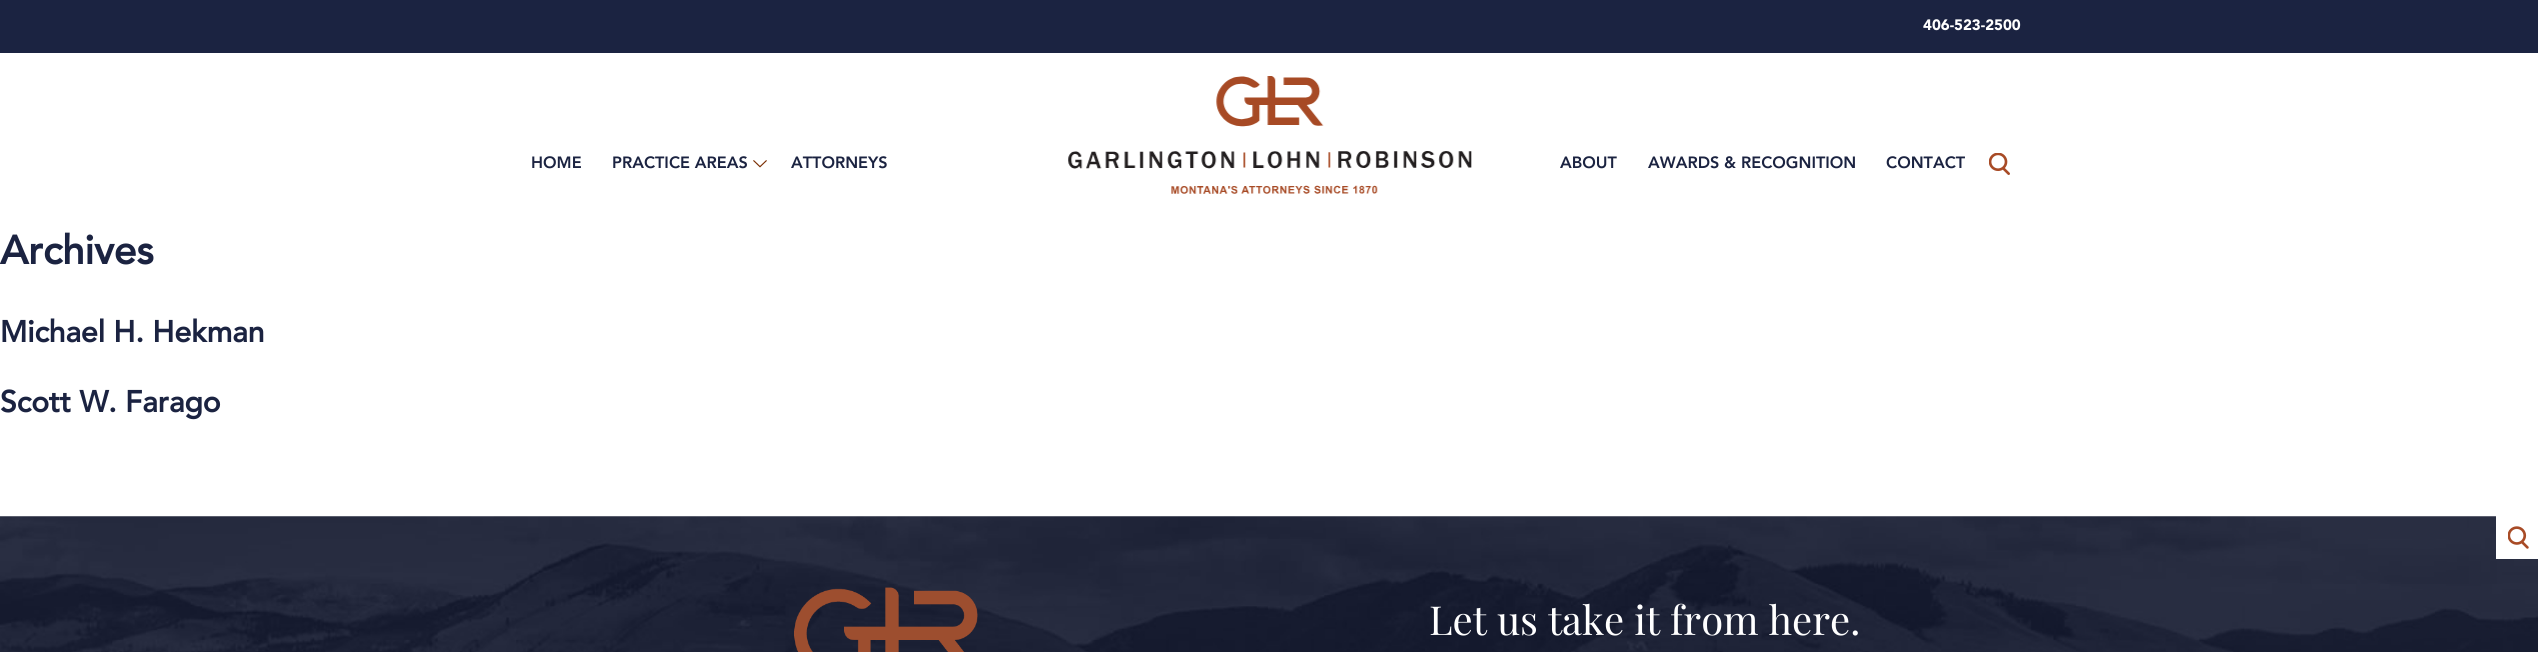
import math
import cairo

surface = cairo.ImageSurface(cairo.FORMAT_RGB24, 2538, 652)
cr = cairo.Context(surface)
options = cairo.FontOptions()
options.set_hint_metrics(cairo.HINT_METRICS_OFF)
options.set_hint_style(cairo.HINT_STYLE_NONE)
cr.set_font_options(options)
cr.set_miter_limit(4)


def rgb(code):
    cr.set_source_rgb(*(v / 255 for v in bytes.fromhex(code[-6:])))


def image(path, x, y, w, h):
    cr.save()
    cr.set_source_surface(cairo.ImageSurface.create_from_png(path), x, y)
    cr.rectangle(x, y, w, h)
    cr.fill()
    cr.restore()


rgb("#ffffff")
cr.paint()
rgb("#1b2341")
cr.rectangle(0, 0, 2538, 53)
cr.fill()
image("img/1.png", 753, 160, 14, 8)
image("img/2.png", 1068, 76, 404, 118)
image("img/3.png", 1989, 153, 21, 22)
image("img/5.png", 0, 516, 2538, 136)
rgb("#ffffff")
cr.rectangle(2496, 516, 42, 43)
cr.fill()
image("img/4.png", 2508, 526, 21, 23)
image("img/6.png", 794, 587, 184, 65)
cr.select_font_face("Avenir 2")
cr.set_font_size(15)
cr.move_to(1923, 30)
cr.show_text("406-523-2500")
cr.select_font_face("Avenir")
cr.set_font_size(16.25)
rgb("#1b2341")
for x, y, s in [
    (531, 168, "HOME"),
    (612, 168, "PRACTICE AREAS"),
    (791, 168, "ATTORNEYS"),
    (1560, 168, "ABOUT"),
    (1648, 168, "AWARDS & RECOGNITION"),
    (1886, 168, "CONTACT"),
]:
    cr.move_to(x, y)
    cr.show_text(s)
cr.select_font_face("Avenir", cairo.FONT_SLANT_NORMAL, cairo.FONT_WEIGHT_BOLD)
cr.set_font_size(40)
cr.move_to(0, 264)
cr.show_text("Archives")
cr.set_font_size(30)
cr.move_to(0, 342)
cr.show_text("Michael H. Hekman")
cr.move_to(0, 412)
cr.show_text("Scott W. Farago")
cr.select_font_face("Playfair Display")
cr.set_font_size(40)
rgb("#ffffff")
cr.move_to(1429, 635)
cr.show_text("Let us take it from here.")
surface.write_to_png("page.png")
